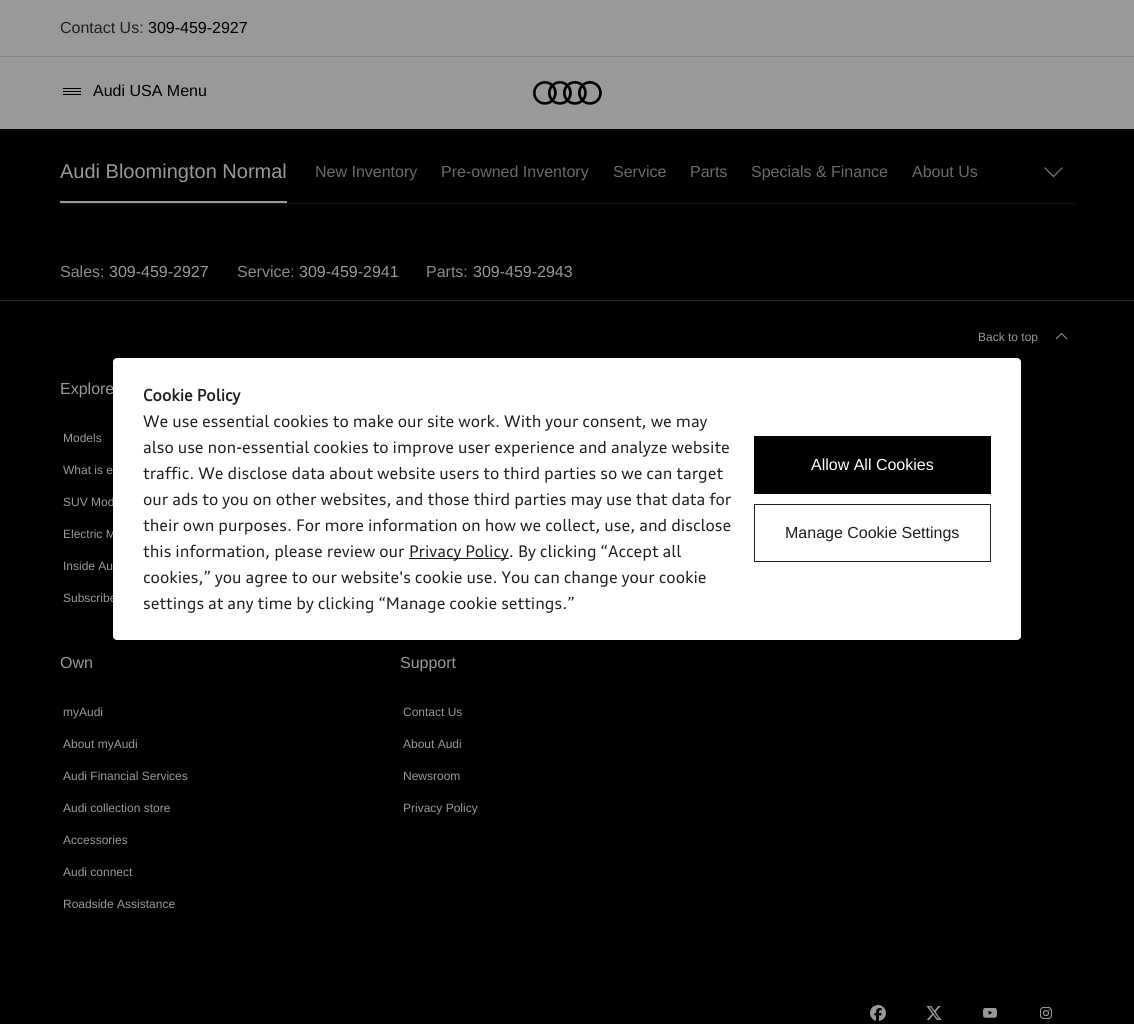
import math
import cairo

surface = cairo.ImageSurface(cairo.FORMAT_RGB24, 1134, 1024)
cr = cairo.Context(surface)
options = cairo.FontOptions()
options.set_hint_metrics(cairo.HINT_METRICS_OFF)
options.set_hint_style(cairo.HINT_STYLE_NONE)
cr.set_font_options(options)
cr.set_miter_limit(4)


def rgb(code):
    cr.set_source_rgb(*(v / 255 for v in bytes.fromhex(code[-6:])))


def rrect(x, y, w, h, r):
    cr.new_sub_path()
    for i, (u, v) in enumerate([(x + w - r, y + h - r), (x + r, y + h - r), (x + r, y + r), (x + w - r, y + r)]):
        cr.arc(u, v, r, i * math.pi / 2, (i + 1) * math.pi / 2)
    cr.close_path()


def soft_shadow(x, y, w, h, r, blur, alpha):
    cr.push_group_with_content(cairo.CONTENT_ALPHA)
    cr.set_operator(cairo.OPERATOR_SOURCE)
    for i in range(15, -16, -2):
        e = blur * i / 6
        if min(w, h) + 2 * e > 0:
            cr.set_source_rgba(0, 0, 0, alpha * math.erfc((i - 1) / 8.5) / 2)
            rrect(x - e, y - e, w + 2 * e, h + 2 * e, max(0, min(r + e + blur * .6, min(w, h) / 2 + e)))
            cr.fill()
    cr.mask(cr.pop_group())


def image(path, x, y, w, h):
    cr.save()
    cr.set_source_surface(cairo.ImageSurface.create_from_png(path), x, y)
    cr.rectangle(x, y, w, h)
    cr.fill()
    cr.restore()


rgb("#999999")
cr.paint()
for x, y, w, h, color in [
    (0, 56, 1134, 1, "#828282"),
    (63, 88, 18, 1, "#000000"),
    (63, 91, 18, 1, "#000000"),
    (63, 94, 18, 1, "#000000"),
]:
    rgb(color)
    cr.rectangle(x, y, w, h)
    cr.fill()
image("img/1.png", 533, 81, 69, 24)
for x, y, w, h, color in [
    (0, 129, 1134, 171, "#000000"),
    (60, 203, 1014, 1, "#171717"),
    (60, 201, 227, 2, "#999999"),
]:
    rgb(color)
    cr.rectangle(x, y, w, h)
    cr.fill()
image("img/2.png", 1043, 167, 20, 11)
rgb("#2e2e2e")
cr.rectangle(0, 300, 1134, 1)
cr.fill()
rgb("#000000")
cr.rectangle(0, 301, 1134, 723)
cr.fill()
cr.new_path()
cr.move_to(1067, 339)
cr.line_to(1061.5, 333.5)
cr.line_to(1056, 339)
rgb("#999999")
cr.set_line_width(1)
cr.stroke()
image("img/3.png", 870, 1005, 16, 16)
image("img/4.png", 926, 1006, 16, 14)
image("img/5.png", 983, 1008, 14, 10)
image("img/6.png", 1040, 1007, 12, 12)
rgb("#000000")
soft_shadow(113, 383, 908, 282, 4, 27.5, 0.21)
soft_shadow(113, 374, 908, 282, 4, 14, 0.22)
cr.select_font_face("Liberation Sans")
cr.set_font_size(16)
rgb("#1f1f1f")
cr.move_to(60, 33)
cr.show_text("Contact Us:")
rgb("#000000")
cr.move_to(148, 33)
cr.show_text("309-459-2927")
cr.move_to(93, 96)
cr.show_text("Audi USA Menu")
cr.set_font_size(20)
rgb("#999999")
cr.move_to(60, 178)
cr.show_text("Audi Bloomington Normal")
cr.set_font_size(16)
rgb("#6b6b6b")
for x, y, s in [
    (315, 177, "New Inventory"),
    (441, 177, "Pre-owned Inventory"),
    (613, 177, "Service"),
    (690, 177, "Parts"),
    (751, 177, "Specials & Finance"),
    (912, 177, "About Us"),
]:
    cr.move_to(x, y)
    cr.show_text(s)
rgb("#8a8a8a")
cr.move_to(60, 277)
cr.show_text("Sales:")
rgb("#999999")
cr.move_to(109, 277)
cr.show_text("309-459-2927")
rgb("#8a8a8a")
cr.move_to(237, 277)
cr.show_text("Service:")
rgb("#999999")
cr.move_to(299, 277)
cr.show_text("309-459-2941")
rgb("#8a8a8a")
cr.move_to(426, 277)
cr.show_text("Parts:")
rgb("#999999")
cr.move_to(473, 277)
cr.show_text("309-459-2943")
cr.set_font_size(12)
cr.move_to(978, 341)
cr.show_text("Back to top")
cr.set_font_size(16)
cr.move_to(60, 394)
cr.show_text("Explore")
cr.set_font_size(12)
for x, y, s in [
    (63, 442, "Models"),
    (63, 474, "What is e"),
    (63, 506, "SUV Mod"),
    (63, 538, "Electric M"),
    (63, 570, "Inside Au"),
    (63, 602, "Subscribe"),
]:
    cr.move_to(x, y)
    cr.show_text(s)
cr.set_font_size(16)
cr.move_to(60, 668)
cr.show_text("Own")
cr.set_font_size(12)
for x, y, s in [
    (63, 716, "myAudi"),
    (63, 748, "About myAudi"),
    (63, 780, "Audi Financial Services"),
    (63, 812, "Audi collection store"),
    (63, 844, "Accessories"),
    (63, 876, "Audi connect"),
    (63, 908, "Roadside Assistance"),
]:
    cr.move_to(x, y)
    cr.show_text(s)
cr.set_font_size(16)
cr.move_to(400, 668)
cr.show_text("Support")
cr.set_font_size(12)
for x, y, s in [
    (403, 716, "Contact Us"),
    (403, 748, "About Audi"),
    (403, 780, "Newsroom"),
    (403, 812, "Privacy Policy"),
]:
    cr.move_to(x, y)
    cr.show_text(s)
rgb("#ffffff")
rrect(113, 358, 908, 282, 4)
cr.fill()
cr.select_font_face("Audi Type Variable", cairo.FONT_SLANT_NORMAL, cairo.FONT_WEIGHT_BOLD)
cr.set_font_size(16)
rgb("#1f1f1f")
cr.move_to(143, 401)
cr.show_text("Cookie Policy")
cr.select_font_face("Audi Type Variable")
for x, y, s in [
    (143, 427, "We use essential cookies to make our site work. With your consent, we may"),
    (143, 453, "also use non-essential cookies to improve user experience and analyze website"),
    (143, 479, "traffic. We disclose data about website users to third parties so we can target"),
    (143, 505, "our ads to you on other websites, and those third parties may use that data for"),
    (143, 531, "their own purposes. For more information on how we collect, use, and disclose"),
    (143, 557, "this information, please review our"),
]:
    cr.move_to(x, y)
    cr.show_text(s)
cr.rectangle(409, 558, 100, 1)
cr.fill()
for x, y, s in [
    (409, 557, "Privacy Policy. By clicking “Accept all"),
    (143, 583, "cookies,” you agree to our website's cookie use. You can change your cookie"),
    (143, 609, "settings at any time by clicking “Manage cookie settings.”"),
]:
    cr.move_to(x, y)
    cr.show_text(s)
rgb("#000000")
cr.rectangle(754, 436, 237, 58)
cr.fill()
cr.select_font_face("Liberation Sans")
rgb("#ffffff")
cr.move_to(811, 470)
cr.show_text("Allow All Cookies")
cr.rectangle(754.5, 504.5, 236, 57)
rgb("#1f1f1f")
cr.stroke()
cr.move_to(785, 538)
cr.show_text("Manage Cookie Settings")
surface.write_to_png("page.png")
